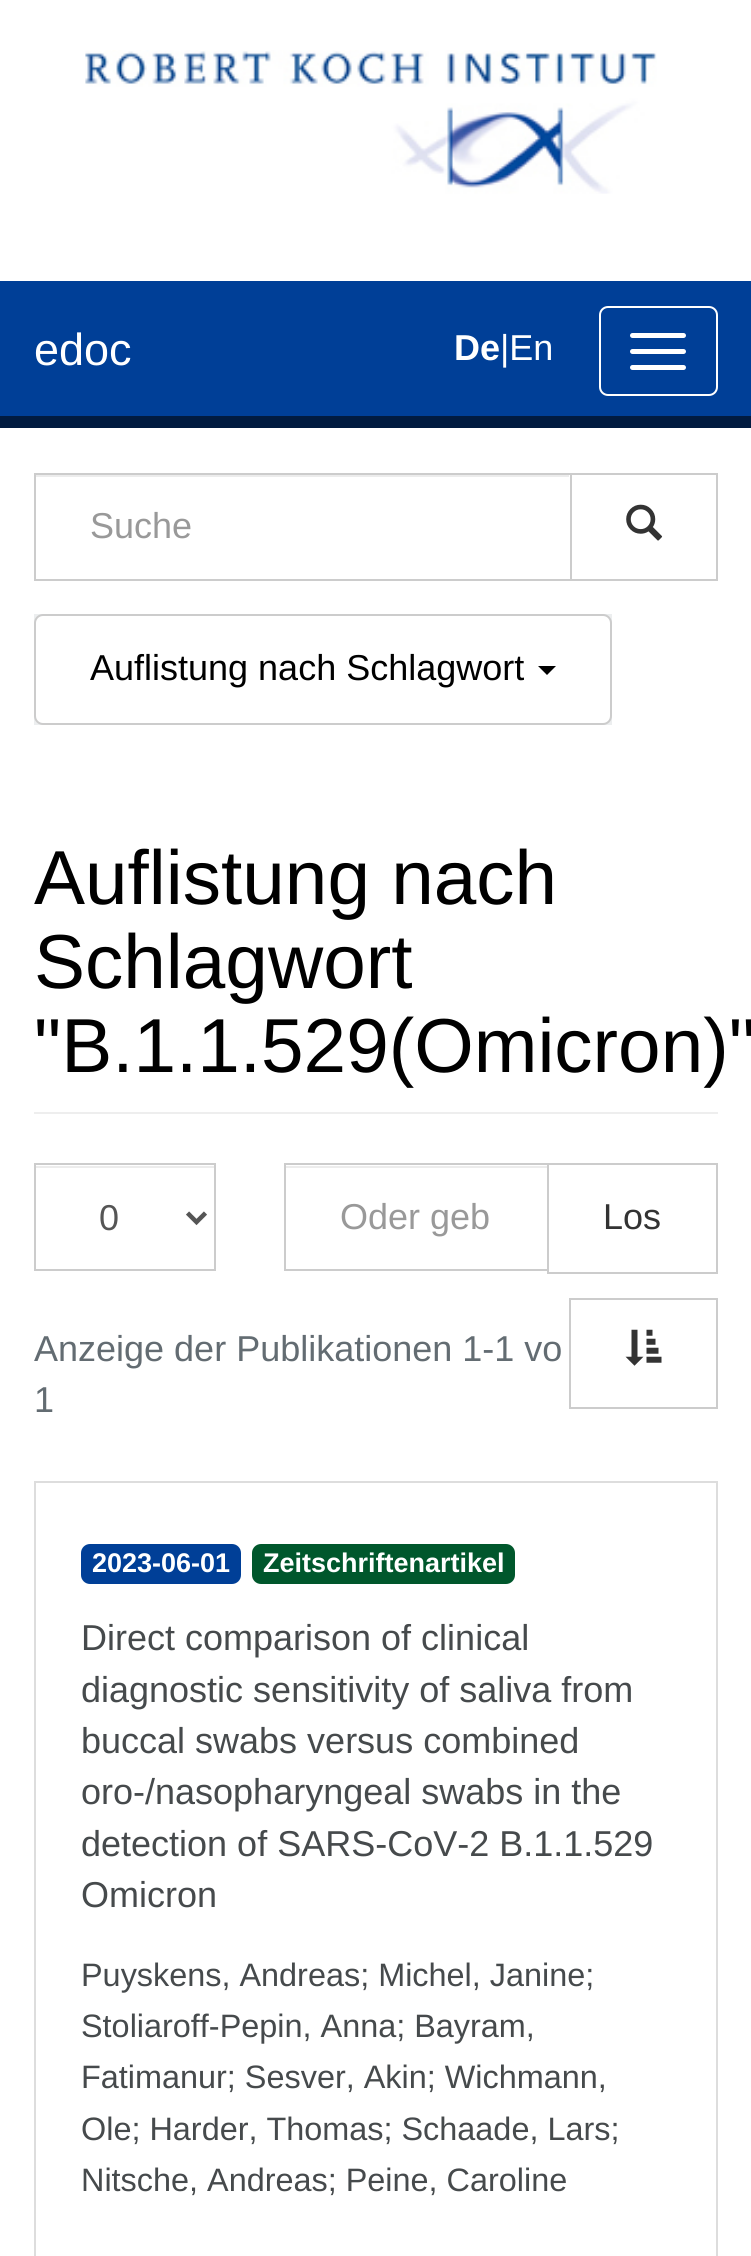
import math
import cairo

surface = cairo.ImageSurface(cairo.FORMAT_RGB24, 751, 2256)
cr = cairo.Context(surface)
options = cairo.FontOptions()
options.set_hint_metrics(cairo.HINT_METRICS_OFF)
options.set_hint_style(cairo.HINT_STYLE_NONE)
cr.set_font_options(options)
cr.set_miter_limit(4)


def rgb(code):
    cr.set_source_rgb(*(v / 255 for v in bytes.fromhex(code[-6:])))


def rrect(x, y, w, h, r):
    cr.new_sub_path()
    for i, (u, v) in enumerate([(x + w - r, y + h - r), (x + r, y + h - r), (x + r, y + r), (x + w - r, y + r)]):
        cr.arc(u, v, r, i * math.pi / 2, (i + 1) * math.pi / 2)
    cr.close_path()


def image(path, x, y, w, h):
    cr.save()
    cr.set_source_surface(cairo.ImageSurface.create_from_png(path), x, y)
    cr.rectangle(x, y, w, h)
    cr.fill()
    cr.restore()


rgb("#ffffff")
cr.paint()
image("img/1.png", 85, 50, 572, 144)
rgb("#003f97")
cr.rectangle(0, 281, 751, 135)
cr.fill()
rgb("#011b40")
cr.rectangle(0, 416, 751, 12)
cr.fill()
rrect(600, 307, 117, 88, 8)
rgb("#ffffff")
cr.stroke()
rrect(630, 333, 56, 5, 2.5)
cr.fill()
rrect(630, 349, 56, 5, 2.5)
cr.fill()
rrect(630, 365, 56, 5, 2.5)
cr.fill()
cr.rectangle(570, 474, 147, 106)
rgb("#cccccc")
cr.stroke()
rgb("#ffffff")
cr.rectangle(569, 475, 1, 104)
cr.fill()
rgb("#ececec")
cr.rectangle(36, 475, 533, 2)
cr.fill()
cr.rectangle(35, 474, 536, 106)
rgb("#cccccc")
cr.stroke()
image("img/2.png", 626, 504, 37, 37)
rgb("#eceeef")
cr.rectangle(34, 614, 578, 111)
cr.fill()
rgb("#ffffff")
rrect(35, 615, 576, 109, 8)
cr.fill_preserve()
rgb("#cccccc")
cr.stroke()
rgb("#000000")
cr.new_path()
cr.move_to(538, 666)
cr.line_to(556, 666)
cr.line_to(547, 675)
cr.close_path()
cr.fill()
rgb("#eeeeee")
cr.rectangle(34, 1112, 684, 2)
cr.fill()
rgb("#ececec")
cr.rectangle(36, 1166, 178, 2)
cr.fill()
cr.rectangle(35, 1164, 180, 106)
rgb("#cccccc")
cr.stroke()
cr.new_path()
cr.move_to(187.5, 1213)
cr.line_to(196.5, 1222)
cr.line_to(205.5, 1213)
rgb("#555555")
cr.set_line_width(4.5)
cr.stroke()
rgb("#ececec")
cr.rectangle(286, 1166, 261, 2)
cr.fill()
cr.rectangle(548, 1164, 169, 109)
rgb("#cccccc")
cr.set_line_width(2)
cr.stroke()
cr.rectangle(285, 1164, 263, 106)
cr.stroke()
cr.rectangle(570, 1299, 147, 109)
cr.stroke()
image("img/3.png", 625, 1329, 37, 37)
cr.rectangle(35, 1482, 682, 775)
rgb("#dddddd")
cr.stroke()
rgb("#003f97")
rrect(81, 1544, 160, 40, 9)
cr.fill()
rgb("#00572c")
rrect(252, 1544, 263, 40, 9)
cr.fill()
cr.select_font_face("Liberation Sans")
cr.set_font_size(45)
rgb("#ffffff")
cr.move_to(34, 365)
cr.show_text("edoc")
cr.select_font_face("Liberation Sans", cairo.FONT_SLANT_NORMAL, cairo.FONT_WEIGHT_BOLD)
cr.set_font_size(36)
cr.move_to(454, 360)
cr.show_text("De")
cr.select_font_face("Liberation Sans")
cr.move_to(500, 360)
cr.show_text("|En")
rgb("#999999")
cr.move_to(90, 538)
cr.show_text("Suche")
rgb("#000000")
cr.move_to(90, 680)
cr.show_text("Auflistung nach Schlagwort")
cr.set_font_size(76.5)
for x, y, s in [
    (34, 904, "Auflistung nach"),
    (34, 988, "Schlagwort"),
    (34, 1072, "\"B.1.1.529(Omicron)\""),
]:
    cr.move_to(x, y)
    cr.show_text(s)
cr.set_font_size(36)
rgb("#555555")
cr.move_to(99, 1230)
cr.show_text("0")
rgb("#999999")
cr.move_to(340, 1229)
cr.show_text("Oder geb")
rgb("#333333")
cr.move_to(603, 1229)
cr.show_text("Los")
rgb("#636c72")
cr.move_to(34, 1361)
cr.show_text("Anzeige der Publikationen 1-1 vo")
cr.move_to(34, 1412)
cr.show_text("1")
cr.select_font_face("Liberation Sans", cairo.FONT_SLANT_NORMAL, cairo.FONT_WEIGHT_BOLD)
cr.set_font_size(27)
rgb("#ffffff")
cr.move_to(92, 1572)
cr.show_text("2023-06-01")
cr.move_to(263, 1572)
cr.show_text("Zeitschriftenartikel")
cr.select_font_face("Liberation Sans")
cr.set_font_size(36)
rgb("#464a4c")
for x, y, s in [
    (81, 1650, "Direct comparison of clinical"),
    (81, 1702, "diagnostic sensitivity of saliva from"),
    (81, 1753, "buccal swabs versus combined"),
    (81, 1804, "oro-/nasopharyngeal swabs in the"),
    (81, 1856, "detection of SARS-CoV-2 B.1.1.529"),
    (81, 1907, "Omicron"),
]:
    cr.move_to(x, y)
    cr.show_text(s)
cr.set_font_size(32.4)
for x, y, s in [
    (81, 1986, "Puyskens, Andreas; Michel, Janine;"),
    (81, 2037, "Stoliaroff-Pepin, Anna; Bayram,"),
    (81, 2088, "Fatimanur; Sesver, Akin; Wichmann,"),
    (81, 2140, "Ole; Harder, Thomas; Schaade, Lars;"),
    (81, 2191, "Nitsche, Andreas; Peine, Caroline"),
]:
    cr.move_to(x, y)
    cr.show_text(s)
surface.write_to_png("page.png")
